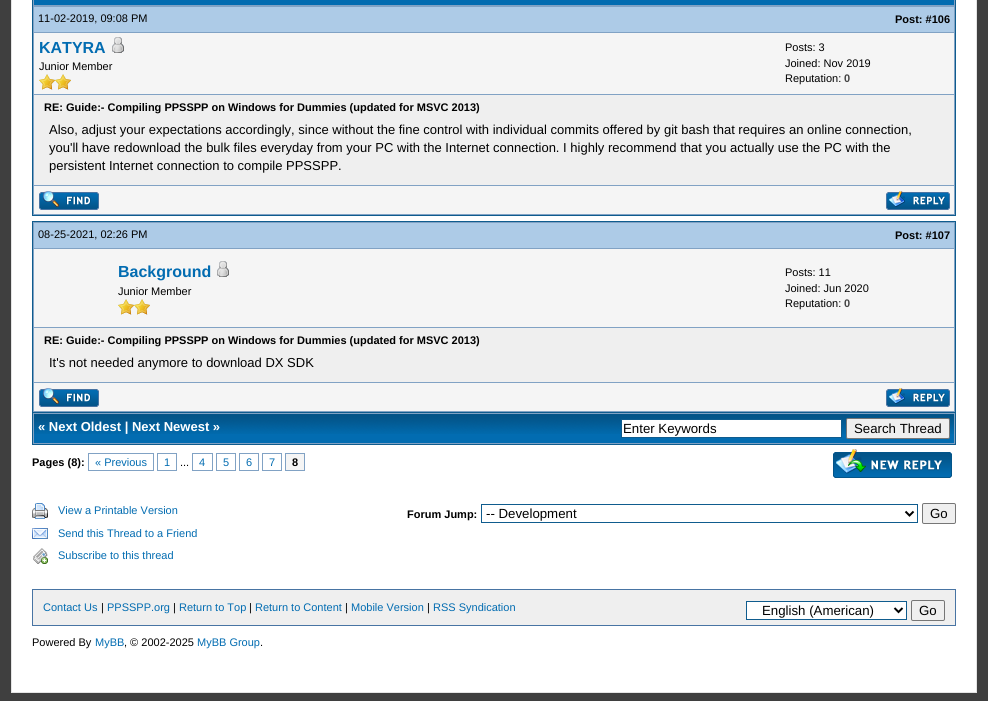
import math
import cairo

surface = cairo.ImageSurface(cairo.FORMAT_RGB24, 988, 701)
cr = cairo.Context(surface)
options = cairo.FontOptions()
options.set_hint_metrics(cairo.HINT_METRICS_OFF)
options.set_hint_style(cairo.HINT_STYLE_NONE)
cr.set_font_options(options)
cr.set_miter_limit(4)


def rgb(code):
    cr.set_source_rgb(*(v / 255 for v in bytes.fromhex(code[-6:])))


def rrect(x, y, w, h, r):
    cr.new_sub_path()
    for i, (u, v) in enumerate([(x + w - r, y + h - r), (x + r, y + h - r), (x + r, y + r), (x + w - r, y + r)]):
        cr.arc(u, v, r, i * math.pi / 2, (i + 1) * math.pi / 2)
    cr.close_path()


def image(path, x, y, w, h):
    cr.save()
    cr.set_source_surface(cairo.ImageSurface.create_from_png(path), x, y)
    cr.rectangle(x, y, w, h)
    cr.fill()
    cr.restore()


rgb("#3f3f3f")
cr.paint()
rgb("#ffffff")
cr.rectangle(11.5, -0.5, 965, 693)
cr.fill_preserve()
rgb("#e4e4e4")
cr.set_line_width(1)
cr.stroke()
for x, y, w, h, color in [
    (33, 0, 922, 215, "#81a2c4"),
    (955, 0, 1, 216, "#0f5c8e"),
    (32, 0, 1, 6, "#0f5c8e"),
    (34, 0, 920, 5, "#026cb1"),
    (32, 215, 924, 1, "#0f5c8e"),
    (32, 6, 1, 210, "#0f5c8e"),
    (34, 7, 920, 25, "#adcbe7"),
    (34, 33, 920, 61, "#f5f5f5"),
]:
    rgb(color)
    cr.rectangle(x, y, w, h)
    cr.fill()
image("img/1.png", 112, 37, 12, 16)
image("img/2.png", 39, 74, 16, 16)
image("img/2.png", 55, 74, 16, 16)
rgb("#efefef")
cr.rectangle(34, 95, 920, 90)
cr.fill()
rgb("#f5f5f5")
cr.rectangle(34, 186, 920, 28)
cr.fill()
image("img/3.png", 39, 191, 60, 19)
image("img/4.png", 886, 191, 64, 19)
rgb("#81a2c4")
cr.rectangle(32.5, 221.5, 923, 191)
cr.fill_preserve()
rgb("#0f5c8e")
cr.stroke()
rgb("#adcbe7")
cr.rectangle(34, 223, 920, 25)
cr.fill()
rgb("#f5f5f5")
cr.rectangle(34, 249, 920, 78)
cr.fill()
image("img/1.png", 217, 261, 12, 16)
image("img/2.png", 118, 299, 16, 16)
image("img/2.png", 134, 299, 16, 16)
rgb("#efefef")
cr.rectangle(34, 328, 920, 54)
cr.fill()
rgb("#f5f5f5")
cr.rectangle(34, 383, 920, 28)
cr.fill()
image("img/3.png", 39, 388, 60, 19)
image("img/4.png", 886, 388, 64, 19)
for x, y, w, h, color in [
    (33, 413, 922, 31, "#81a2c4"),
    (955, 413, 1, 32, "#0f5c8e"),
    (32, 444, 924, 1, "#0f5c8e"),
    (32, 413, 1, 32, "#0f5c8e"),
    (34, 434, 920, 9, "#026cb1"),
]:
    rgb(color)
    cr.rectangle(x, y, w, h)
    cr.fill()
image("img/5.png", 34, 414, 920, 20)
rgb("#ffffff")
cr.rectangle(621.5, 419.5, 220, 18)
cr.fill_preserve()
rgb("#0f5c8e")
cr.stroke()
rgb("#efefef")
rrect(846.5, 418.5, 103, 20, 1.5)
cr.fill_preserve()
rgb("#767676")
cr.stroke()
cr.rectangle(88.5, 453.5, 65, 17)
rgb("#81a2c4")
cr.stroke()
cr.rectangle(157.5, 453.5, 19, 17)
cr.stroke()
cr.rectangle(192.5, 453.5, 20, 17)
cr.stroke()
cr.rectangle(216.5, 453.5, 19, 17)
cr.stroke()
cr.rectangle(239.5, 453.5, 19, 17)
cr.stroke()
cr.rectangle(262.5, 453.5, 19, 17)
cr.stroke()
rgb("#f5f5f5")
cr.rectangle(285.5, 453.5, 19, 17)
cr.fill_preserve()
rgb("#81a2c4")
cr.stroke()
image("img/6.png", 833, 449, 119, 29)
image("img/7.png", 32, 503, 16, 16)
image("img/8.png", 32, 528, 16, 11)
image("img/9.png", 33, 548, 15, 16)
cr.rectangle(481.5, 504.5, 436, 18)
rgb("#0f5c8e")
cr.stroke()
cr.new_path()
cr.move_to(905.5, 511.5)
cr.line_to(909.5, 515.5)
cr.line_to(913.5, 511.5)
rgb("#000000")
cr.set_line_width(2)
cr.stroke()
rgb("#efefef")
rrect(922.5, 503.5, 33, 20, 1.5)
cr.fill_preserve()
rgb("#767676")
cr.set_line_width(1)
cr.stroke()
rgb("#efefef")
cr.rectangle(32.5, 589.5, 923, 36)
cr.fill_preserve()
rgb("#4874a3")
cr.stroke()
rgb("#ffffff")
cr.rectangle(746.5, 601.5, 160, 18)
cr.fill_preserve()
rgb("#0f5c8e")
cr.stroke()
cr.new_path()
cr.move_to(894.5, 608)
cr.line_to(898.5, 612)
cr.line_to(902.5, 608)
rgb("#000000")
cr.set_line_width(2)
cr.stroke()
rrect(911.5, 600.5, 33, 20, 1.5)
rgb("#767676")
cr.set_line_width(1)
cr.stroke()
cr.select_font_face("Liberation Sans")
cr.set_font_size(11)
rgb("#000000")
cr.move_to(38, 22)
cr.show_text("11-02-2019, 09:08 PM")
cr.select_font_face("Liberation Sans", cairo.FONT_SLANT_NORMAL, cairo.FONT_WEIGHT_BOLD)
cr.move_to(895, 23)
cr.show_text("Post: #106")
cr.set_font_size(16)
rgb("#026cb1")
cr.move_to(39, 53)
cr.show_text("KATYRA")
cr.select_font_face("Liberation Sans")
cr.set_font_size(11)
rgb("#000000")
for x, y, s in [
    (39, 70, "Junior Member"),
    (785, 51, "Posts: 3"),
    (785, 67, "Joined: Nov 2019"),
    (785, 82, "Reputation:"),
]:
    cr.move_to(x, y)
    cr.show_text(s)
cr.select_font_face("Liberation Sans", cairo.FONT_SLANT_NORMAL, cairo.FONT_WEIGHT_BOLD)
rgb("#444444")
cr.move_to(844, 82)
cr.show_text("0")
rgb("#000000")
cr.move_to(44, 111)
cr.show_text("RE: Guide:- Compiling PPSSPP on Windows for Dummies (updated for MSVC 2013)")
cr.select_font_face("Liberation Sans")
cr.set_font_size(13)
for x, y, s in [
    (49, 134, "Also, adjust your expectations accordingly, since without the fine control with individual commits offered by git bash that requires an online connection,"),
    (49, 152, "you'll have redownload the bulk files everyday from your PC with the Internet connection. I highly recommend that you actually use the PC with the"),
    (49, 170, "persistent Internet connection to compile PPSSPP."),
]:
    cr.move_to(x, y)
    cr.show_text(s)
cr.set_font_size(11)
cr.move_to(38, 238)
cr.show_text("08-25-2021, 02:26 PM")
cr.select_font_face("Liberation Sans", cairo.FONT_SLANT_NORMAL, cairo.FONT_WEIGHT_BOLD)
cr.move_to(895, 239)
cr.show_text("Post: #107")
cr.set_font_size(16)
rgb("#026cb1")
cr.move_to(118, 277)
cr.show_text("Background")
cr.select_font_face("Liberation Sans")
cr.set_font_size(11)
rgb("#000000")
for x, y, s in [
    (118, 295, "Junior Member"),
    (785, 276, "Posts: 11"),
    (785, 292, "Joined: Jun 2020"),
    (785, 307, "Reputation:"),
]:
    cr.move_to(x, y)
    cr.show_text(s)
cr.select_font_face("Liberation Sans", cairo.FONT_SLANT_NORMAL, cairo.FONT_WEIGHT_BOLD)
rgb("#444444")
cr.move_to(844, 307)
cr.show_text("0")
rgb("#000000")
cr.move_to(44, 344)
cr.show_text("RE: Guide:- Compiling PPSSPP on Windows for Dummies (updated for MSVC 2013)")
cr.select_font_face("Liberation Sans")
cr.set_font_size(13)
cr.move_to(49, 367)
cr.show_text("It's not needed anymore to download DX SDK")
cr.select_font_face("Liberation Sans", cairo.FONT_SLANT_NORMAL, cairo.FONT_WEIGHT_BOLD)
rgb("#ffffff")
cr.move_to(38, 431)
cr.show_text("« Next Oldest | Next Newest »")
cr.select_font_face("Liberation Sans")
cr.set_font_size(13.25)
rgb("#000000")
cr.move_to(623, 433)
cr.show_text("Enter Keywords")
cr.move_to(854, 433)
cr.show_text("Search Thread")
cr.select_font_face("Liberation Sans", cairo.FONT_SLANT_NORMAL, cairo.FONT_WEIGHT_BOLD)
cr.set_font_size(11)
cr.move_to(32, 466)
cr.show_text("Pages (8):")
cr.select_font_face("Liberation Sans")
rgb("#026cb1")
cr.move_to(95, 466)
cr.show_text("« Previous")
cr.move_to(164, 466)
cr.show_text("1")
rgb("#000000")
cr.move_to(180, 466)
cr.show_text("...")
rgb("#026cb1")
for x, y, s in [
    (199, 466, "4"),
    (223, 466, "5"),
    (246, 466, "6"),
    (269, 466, "7"),
]:
    cr.move_to(x, y)
    cr.show_text(s)
cr.select_font_face("Liberation Sans", cairo.FONT_SLANT_NORMAL, cairo.FONT_WEIGHT_BOLD)
rgb("#000000")
cr.move_to(292, 466)
cr.show_text("8")
cr.select_font_face("Liberation Sans")
rgb("#026cb1")
for x, y, s in [
    (58, 514, "View a Printable Version"),
    (58, 537, "Send this Thread to a Friend"),
    (58, 559, "Subscribe to this thread"),
]:
    cr.move_to(x, y)
    cr.show_text(s)
cr.select_font_face("Liberation Sans", cairo.FONT_SLANT_NORMAL, cairo.FONT_WEIGHT_BOLD)
rgb("#000000")
cr.move_to(407, 518)
cr.show_text("Forum Jump:")
cr.select_font_face("Liberation Sans")
cr.set_font_size(13.25)
cr.move_to(486, 518)
cr.show_text("-- Development")
cr.move_to(930, 518)
cr.show_text("Go")
cr.set_font_size(11)
rgb("#026cb1")
cr.move_to(43, 611)
cr.show_text("Contact Us")
rgb("#000000")
cr.move_to(101, 611)
cr.show_text("|")
rgb("#026cb1")
cr.move_to(107, 611)
cr.show_text("PPSSPP.org")
rgb("#000000")
cr.move_to(173, 611)
cr.show_text("|")
rgb("#026cb1")
cr.move_to(179, 611)
cr.show_text("Return to Top")
rgb("#000000")
cr.move_to(249, 611)
cr.show_text("|")
rgb("#026cb1")
cr.move_to(255, 611)
cr.show_text("Return to Content")
rgb("#000000")
cr.move_to(345, 611)
cr.show_text("|")
rgb("#026cb1")
cr.move_to(351, 611)
cr.show_text("Mobile Version")
rgb("#000000")
cr.move_to(427, 611)
cr.show_text("|")
rgb("#026cb1")
cr.move_to(433, 611)
cr.show_text("RSS Syndication")
cr.set_font_size(13.25)
rgb("#000000")
cr.move_to(762, 615)
cr.show_text("English (American)")
cr.move_to(919, 615)
cr.show_text("Go")
cr.set_font_size(11)
cr.move_to(32, 646)
cr.show_text("Powered By")
rgb("#026cb1")
cr.move_to(95, 646)
cr.show_text("MyBB")
rgb("#000000")
cr.move_to(124, 646)
cr.show_text(", © 2002-2025")
rgb("#026cb1")
cr.move_to(197, 646)
cr.show_text("MyBB Group")
rgb("#000000")
cr.move_to(260, 646)
cr.show_text(".")
surface.write_to_png("page.png")
